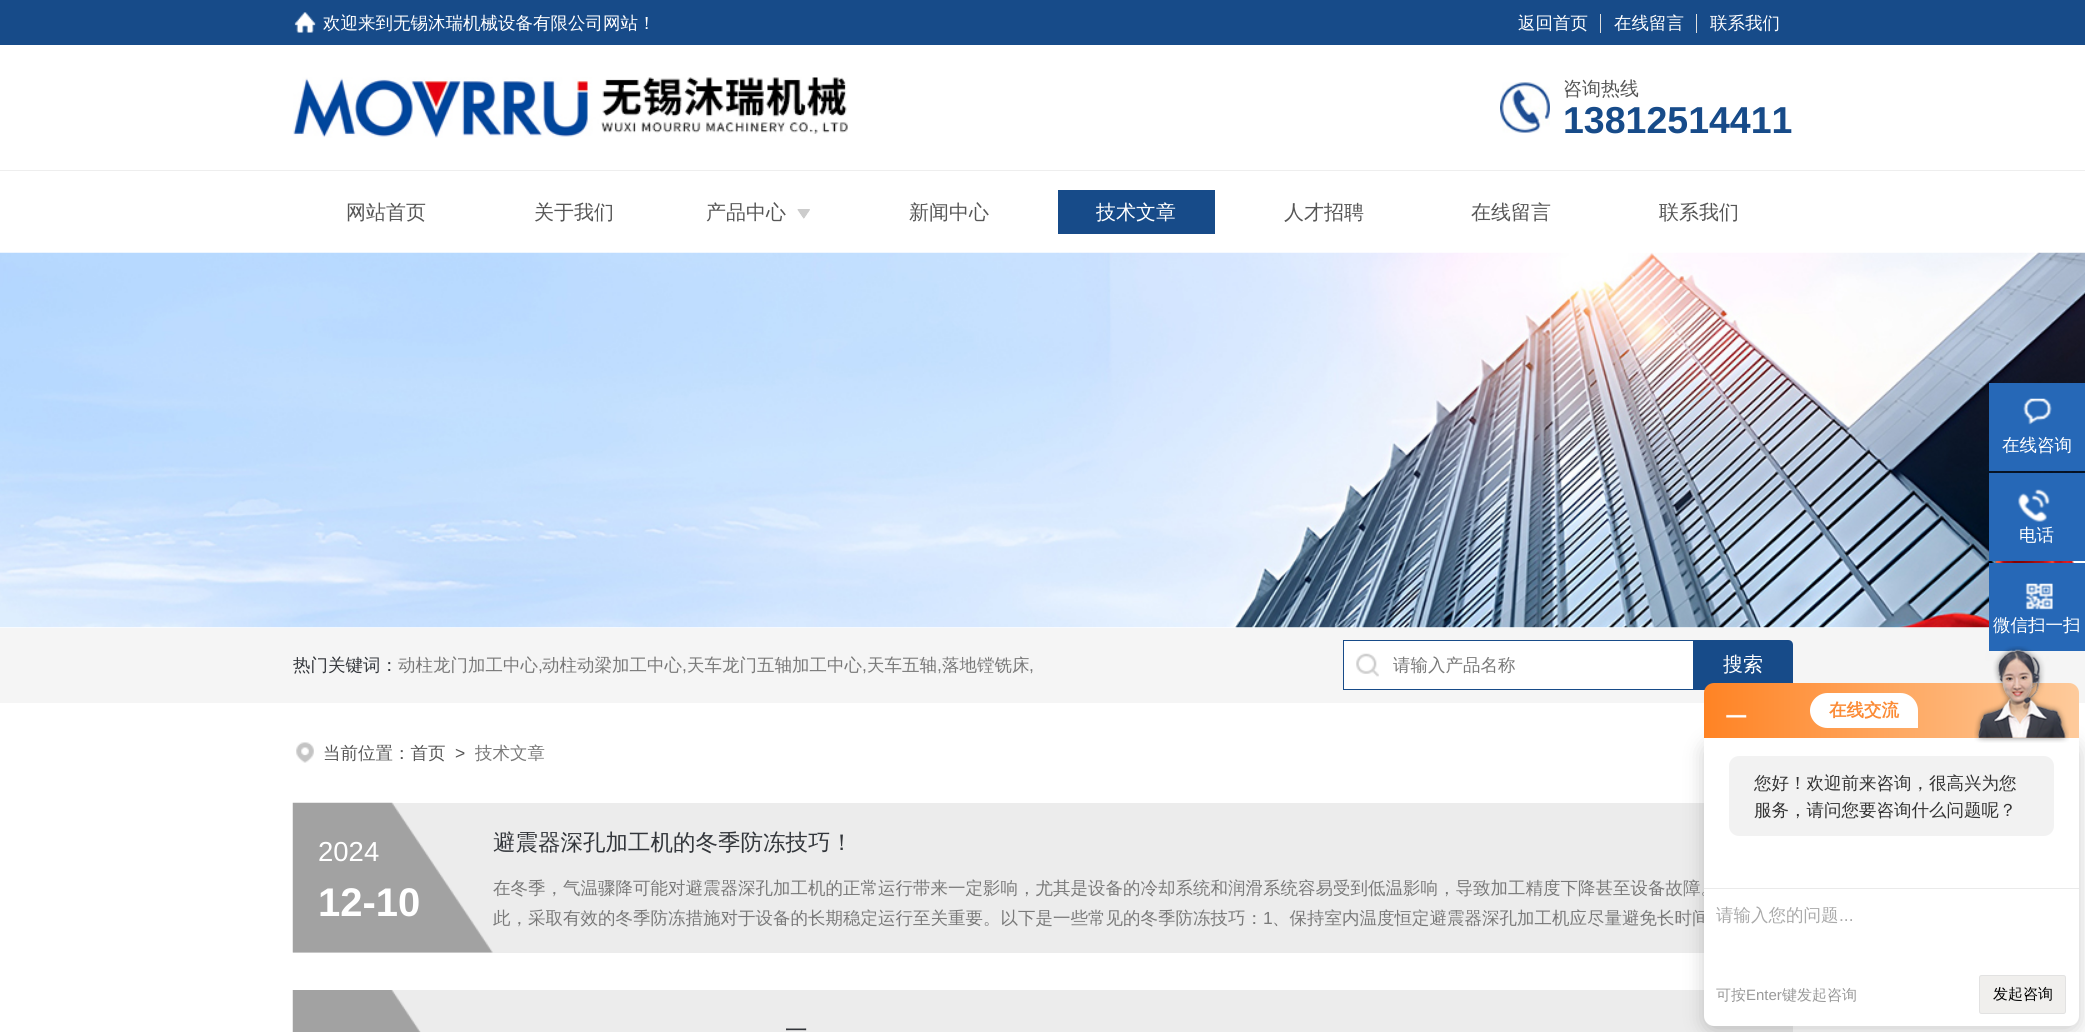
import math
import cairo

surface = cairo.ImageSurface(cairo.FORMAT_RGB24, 2085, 1032)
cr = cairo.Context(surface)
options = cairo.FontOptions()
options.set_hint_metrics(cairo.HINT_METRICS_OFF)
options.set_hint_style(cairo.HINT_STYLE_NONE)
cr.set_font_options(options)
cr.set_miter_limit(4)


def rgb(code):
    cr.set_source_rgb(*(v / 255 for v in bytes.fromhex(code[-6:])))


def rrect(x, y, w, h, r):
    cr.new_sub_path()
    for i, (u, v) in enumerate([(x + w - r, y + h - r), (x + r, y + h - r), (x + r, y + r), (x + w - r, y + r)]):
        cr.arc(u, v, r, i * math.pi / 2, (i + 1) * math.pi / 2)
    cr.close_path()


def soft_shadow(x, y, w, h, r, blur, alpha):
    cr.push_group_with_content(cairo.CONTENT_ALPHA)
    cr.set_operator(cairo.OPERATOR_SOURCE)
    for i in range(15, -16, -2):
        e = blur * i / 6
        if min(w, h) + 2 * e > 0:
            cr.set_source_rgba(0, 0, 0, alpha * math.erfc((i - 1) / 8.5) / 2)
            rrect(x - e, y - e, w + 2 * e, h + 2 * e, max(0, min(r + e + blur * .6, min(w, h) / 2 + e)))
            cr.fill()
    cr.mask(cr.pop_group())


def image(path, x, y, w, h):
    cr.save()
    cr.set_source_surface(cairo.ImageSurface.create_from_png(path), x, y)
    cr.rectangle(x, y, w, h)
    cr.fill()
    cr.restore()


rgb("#ffffff")
cr.paint()
rgb("#174b89")
cr.rectangle(0, 0, 2085, 45)
cr.fill()
image("img/1.png", 294, 12, 22, 21)
rgb("#dfdfdf")
cr.rectangle(1600, 14, 1, 19)
cr.fill()
cr.rectangle(1696, 14, 1, 19)
cr.fill()
image("img/2.png", 293, 77, 555, 61)
image("img/3.png", 1500, 82, 50, 51)
rgb("#eeeeee")
cr.rectangle(0, 170, 2085, 1)
cr.fill()
image("img/4.png", 797, 209, 13, 10)
rgb("#174b89")
cr.rectangle(1058, 190, 157, 44)
cr.fill()
image("img/5.png", 0, 252, 2085, 376)
rgb("#2668b7")
cr.rectangle(1989, 383, 96, 88)
cr.fill()
image("img/6.png", 2023, 398, 29, 27)
cr.rectangle(1989, 473, 96, 88)
cr.fill()
image("img/7.png", 2018, 489, 32, 33)
rgb("#f5f5f5")
cr.rectangle(0, 628, 2085, 75)
cr.fill()
rgb("#2668b7")
cr.rectangle(1989, 563, 96, 88)
cr.fill()
image("img/8.png", 2025, 583, 28, 27)
rgb("#ffffff")
cr.rectangle(1344, 641, 349, 48)
cr.fill()
image("img/9.png", 1356, 653, 23, 24)
for x, y, w, h, color in [
    (1343, 640, 350, 1, "#174b89"),
    (1343, 689, 350, 1, "#174b89"),
    (1343, 640, 1, 50, "#174b89"),
]:
    rgb(color)
    cr.rectangle(x, y, w, h)
    cr.fill()
cr.new_path()
cr.move_to(1693, 640)
cr.line_to(1788, 640)
cr.curve_to(1791, 640, 1793, 642, 1793, 645)
cr.line_to(1793, 685)
cr.curve_to(1793, 688, 1791, 690, 1788, 690)
cr.line_to(1693, 690)
cr.close_path()
cr.fill()
image("img/10.png", 296, 742, 18, 21)
rgb("#ececec")
cr.rectangle(293, 803, 1411, 150)
cr.fill()
cr.rectangle(391, 990, 1402, 42)
cr.fill()
rgb("#000000")
soft_shadow(1704, 743, 375, 288, 10, 10, 0.2)
gradient = cairo.LinearGradient(1704, 710, 2079, 710)
gradient.add_color_stop_rgba(0, 1, 0.514, 0.141, 1)
gradient.add_color_stop_rgba(1, 0.996, 0.796, 0.612, 1)
cr.set_source(gradient)
cr.new_path()
cr.move_to(1714, 683)
cr.line_to(2069, 683)
cr.curve_to(2074.5, 683, 2079, 687.5, 2079, 693)
cr.line_to(2079, 738)
cr.line_to(1704, 738)
cr.line_to(1704, 693)
cr.curve_to(1704, 687.5, 1708.5, 683, 1714, 683)
cr.close_path()
cr.fill()
image("img/11.png", 1726, 714, 21, 4)
rgb("#ffffff")
cr.new_path()
cr.move_to(1827.5, 693)
cr.line_to(1900.5, 693)
cr.curve_to(1910, 693, 1918, 701, 1918, 710.5)
cr.line_to(1918, 728)
cr.line_to(1827.5, 728)
cr.curve_to(1818, 728, 1810, 720, 1810, 710.5)
cr.curve_to(1810, 701, 1818, 693, 1827.5, 693)
cr.close_path()
cr.fill()
image("img/13.png", 292, 802, 201, 151)
image("img/14.png", 292, 990, 129, 42)
cr.select_font_face("WenQuanYi Zen Hei Medium")
cr.set_font_size(17.5)
for x, y, s in [
    (323, 29, "欢迎来到无锡沐瑞机械设备有限公司网站！"),
    (1518, 29, "返回首页"),
    (1614, 29, "在线留言"),
    (1710, 29, "联系我们"),
]:
    cr.move_to(x, y)
    cr.show_text(s)
cr.set_font_size(19)
rgb("#565656")
cr.move_to(1563, 95)
cr.show_text("咨询热线")
cr.select_font_face("Liberation Sans", cairo.FONT_SLANT_NORMAL, cairo.FONT_WEIGHT_BOLD)
cr.set_font_size(37.5)
rgb("#174b89")
cr.move_to(1563, 133)
cr.show_text("13812514411")
cr.select_font_face("WenQuanYi Zen Hei Medium")
cr.set_font_size(20)
rgb("#565656")
for x, y, s in [
    (346, 219, "网站首页"),
    (534, 219, "关于我们"),
    (706, 219, "产品中心"),
    (909, 219, "新闻中心"),
]:
    cr.move_to(x, y)
    cr.show_text(s)
rgb("#ffffff")
cr.move_to(1096, 219)
cr.show_text("技术文章")
rgb("#565656")
for x, y, s in [
    (1284, 219, "人才招聘"),
    (1471, 219, "在线留言"),
    (1659, 219, "联系我们"),
]:
    cr.move_to(x, y)
    cr.show_text(s)
cr.set_font_size(17.5)
rgb("#ffffff")
for x, y, s in [
    (2002, 451, "在线咨询"),
    (2019, 541, "电话"),
    (1993, 631, "微信扫一扫"),
]:
    cr.move_to(x, y)
    cr.show_text(s)
rgb("#32353a")
cr.move_to(293, 671)
cr.show_text("热门关键词：")
rgb("#797979")
cr.move_to(398, 671)
cr.show_text("动柱龙门加工中心")
cr.select_font_face("Liberation Sans")
cr.move_to(538, 671)
cr.show_text(",")
cr.select_font_face("WenQuanYi Zen Hei Medium")
cr.move_to(542, 671)
cr.show_text("动柱动梁加工中心")
cr.select_font_face("Liberation Sans")
cr.move_to(682, 671)
cr.show_text(",")
cr.select_font_face("WenQuanYi Zen Hei Medium")
cr.move_to(687, 671)
cr.show_text("天车龙门五轴加工中心")
cr.select_font_face("Liberation Sans")
cr.move_to(862, 671)
cr.show_text(",")
cr.select_font_face("WenQuanYi Zen Hei Medium")
cr.move_to(867, 671)
cr.show_text("天车五轴")
cr.select_font_face("Liberation Sans")
cr.move_to(937, 671)
cr.show_text(",")
cr.select_font_face("WenQuanYi Zen Hei Medium")
cr.move_to(942, 671)
cr.show_text("落地镗铣床")
cr.select_font_face("Liberation Sans")
cr.move_to(1029, 671)
cr.show_text(",")
cr.select_font_face("WenQuanYi Zen Hei Medium")
cr.move_to(1393, 671)
cr.show_text("请输入产品名称")
cr.set_font_size(20)
rgb("#ffffff")
cr.move_to(1723, 671)
cr.show_text("搜索")
cr.set_font_size(17.5)
rgb("#565656")
cr.move_to(323, 759)
cr.show_text("当前位置：首页")
cr.select_font_face("Liberation Sans")
cr.move_to(455, 759)
cr.show_text(">")
cr.select_font_face("WenQuanYi Zen Hei Medium")
rgb("#797979")
cr.move_to(475, 759)
cr.show_text("技术文章")
cr.select_font_face("WenQuanYi Zen Hei", cairo.FONT_SLANT_NORMAL, cairo.FONT_WEIGHT_BOLD)
rgb("#fb8b36")
cr.move_to(1829, 716)
cr.show_text("在线交流")
cr.select_font_face("Liberation Sans")
cr.set_font_size(27.5)
rgb("#ffffff")
cr.move_to(318, 861)
cr.show_text("2024")
cr.select_font_face("Liberation Sans", cairo.FONT_SLANT_NORMAL, cairo.FONT_WEIGHT_BOLD)
cr.set_font_size(40)
cr.move_to(318, 916)
cr.show_text("12-10")
cr.select_font_face("WenQuanYi Zen Hei Medium")
cr.set_font_size(22.5)
rgb("#32353a")
cr.move_to(493, 850)
cr.show_text("避震器深孔加工机的冬季防冻技巧！")
cr.set_font_size(17.5)
rgb("#797979")
cr.move_to(493, 894)
cr.show_text("在冬季，气温骤降可能对避震器深孔加工机的正常运行带来一定影响，尤其是设备的冷却系统和润滑系统容易受到低温影响，导致加工精度下降甚至设备故障。")
cr.move_to(493, 924)
cr.show_text("此，采取有效的冬季防冻措施对于设备的长期稳定运行至关重要。以下是一些常见的冬季防冻技巧：")
cr.select_font_face("Liberation Sans")
cr.move_to(1263, 924)
cr.show_text("1")
cr.select_font_face("WenQuanYi Zen Hei Medium")
cr.move_to(1272, 924)
cr.show_text("、保持室内温度恒定避震器深孔加工机应尽量避免长时间")
rgb("#ffffff")
cr.new_path()
cr.move_to(1704, 738)
cr.line_to(2079, 738)
cr.line_to(2079, 1016)
cr.curve_to(2079, 1021.5, 2074.5, 1026, 2069, 1026)
cr.line_to(1714, 1026)
cr.curve_to(1708.5, 1026, 1704, 1021.5, 1704, 1016)
cr.close_path()
cr.fill()
image("img/12.png", 1974, 646, 95, 97)
rgb("#f0efed")
rrect(1979.5, 975.5, 86, 38, 2)
cr.fill_preserve()
rgb("#e2e2e2")
cr.set_line_width(1)
cr.stroke()
cr.set_font_size(15)
rgb("#000000")
cr.move_to(1993, 999)
cr.show_text("发起咨询")
rgb("#999999")
cr.move_to(1782, 1000)
cr.show_text("键发起咨询")
cr.select_font_face("Liberation Sans")
cr.move_to(1746, 1000)
cr.show_text("Enter")
cr.select_font_face("WenQuanYi Zen Hei Medium")
cr.move_to(1716, 1000)
cr.show_text("可按")
cr.select_font_face("Liberation Sans")
cr.set_font_size(17.5)
rgb("#aaaaaa")
cr.move_to(1839, 921)
cr.show_text("...")
cr.select_font_face("WenQuanYi Zen Hei Medium")
cr.move_to(1716, 921)
cr.show_text("请输入您的问题")
rgb("#eaeaea")
cr.rectangle(1704, 888, 375, 1)
cr.fill()
rgb("#f2f2f2")
rrect(1729, 756, 325, 80, 10)
cr.fill()
rgb("#333333")
cr.move_to(1754, 816)
cr.show_text("服务，请问您要咨询什么问题呢？")
cr.move_to(1754, 789)
cr.show_text("您好！欢迎前来咨询，很高兴为您")
cr.set_font_size(22.5)
rgb("#32353a")
cr.move_to(785, 1038)
cr.show_text("一")
surface.write_to_png("page.png")
